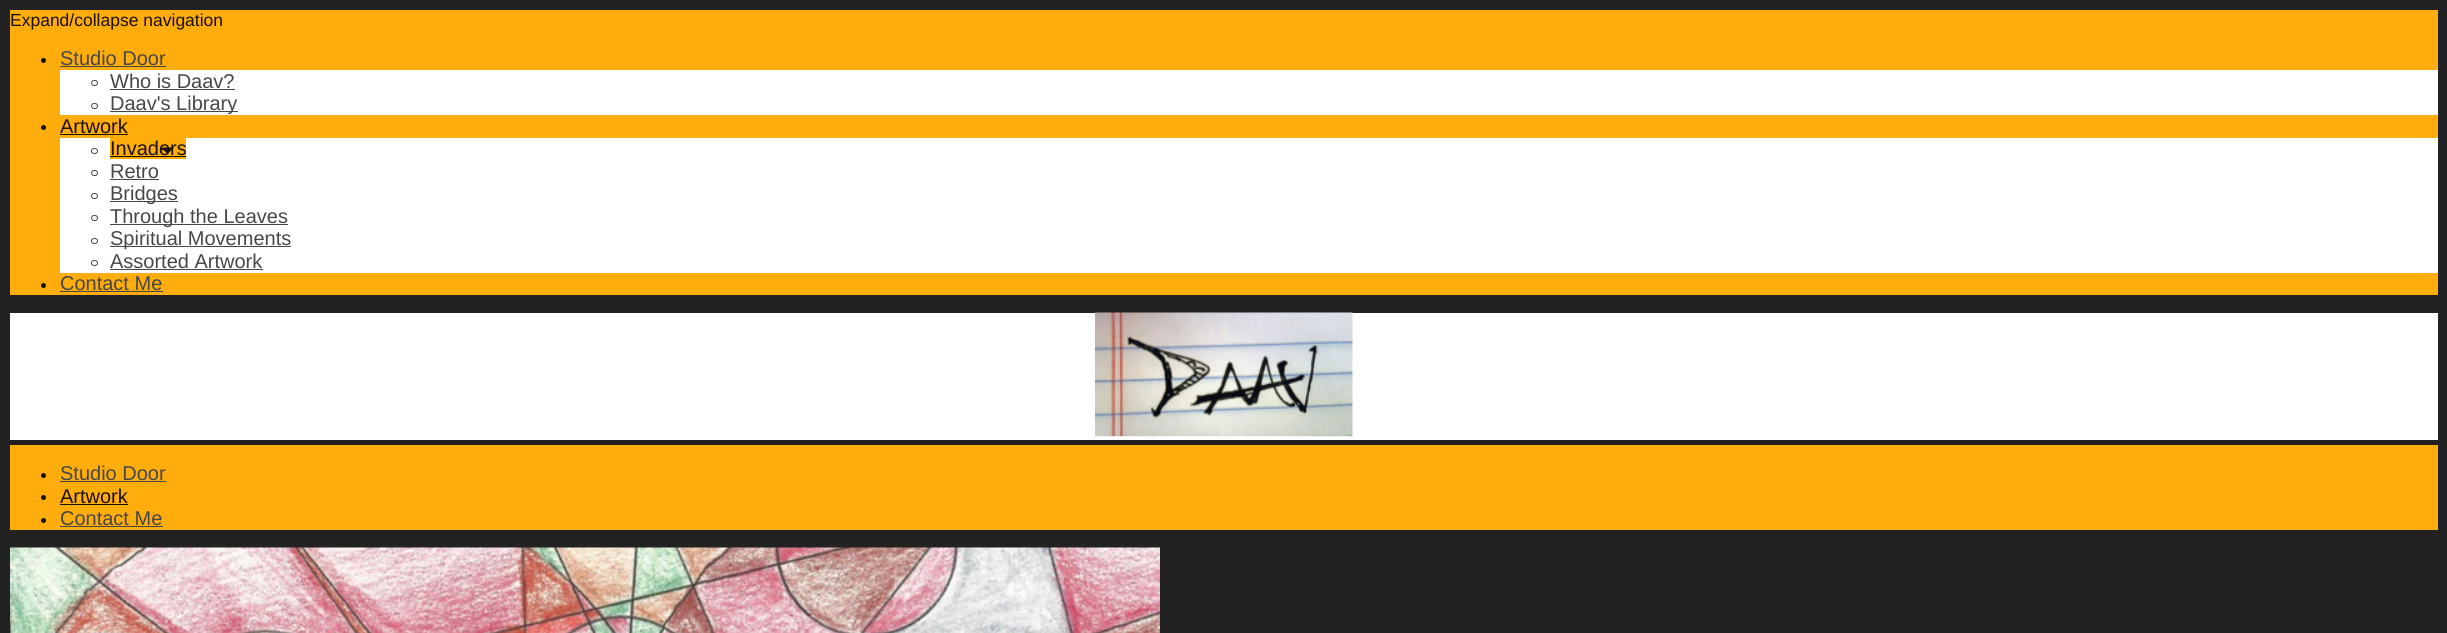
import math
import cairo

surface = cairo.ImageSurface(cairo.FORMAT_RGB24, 2447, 633)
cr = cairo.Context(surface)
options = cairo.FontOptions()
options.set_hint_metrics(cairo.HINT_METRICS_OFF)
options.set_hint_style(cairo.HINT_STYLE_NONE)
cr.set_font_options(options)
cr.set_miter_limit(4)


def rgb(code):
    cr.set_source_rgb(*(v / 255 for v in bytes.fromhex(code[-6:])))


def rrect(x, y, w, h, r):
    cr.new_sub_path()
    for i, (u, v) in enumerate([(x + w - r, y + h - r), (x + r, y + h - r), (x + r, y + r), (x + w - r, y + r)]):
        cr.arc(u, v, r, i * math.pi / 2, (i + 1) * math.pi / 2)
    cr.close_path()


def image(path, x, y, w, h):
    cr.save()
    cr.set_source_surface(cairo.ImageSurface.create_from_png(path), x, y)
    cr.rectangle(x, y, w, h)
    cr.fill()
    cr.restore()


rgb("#222222")
cr.paint()
rgb("#ffac0d")
cr.rectangle(10, 10, 2428, 285)
cr.fill()
rgb("#1a1101")
cr.arc(43.5, 60.5, 2.5, 0, 2 * math.pi)
cr.fill()
rgb("#474747")
cr.rectangle(60, 66, 106, 1)
cr.fill()
rgb("#ffffff")
cr.rectangle(60, 70, 2378, 45)
cr.fill()
rrect(91.5, 80.5, 6, 5, 2.5)
rgb("#474747")
cr.set_line_width(1)
cr.stroke()
cr.rectangle(110, 89, 125, 1)
cr.fill()
rrect(91.5, 103.5, 6, 5, 2.5)
cr.stroke()
cr.rectangle(110, 111, 128, 1)
cr.fill()
rgb("#1a1101")
cr.arc(43.5, 127.5, 2.5, 0, 2 * math.pi)
cr.fill()
cr.rectangle(60, 134, 68, 1)
cr.fill()
rgb("#ffffff")
cr.rectangle(60, 138, 2378, 135)
cr.fill()
rrect(91.5, 148.5, 6, 5, 2.5)
rgb("#474747")
cr.stroke()
rgb("#ffac0d")
cr.rectangle(110, 138, 76, 21)
cr.fill()
rgb("#1a1101")
cr.rectangle(110, 156, 76, 1)
cr.fill()
cr.new_path()
cr.move_to(161, 147.5)
cr.line_to(174, 147.5)
cr.line_to(167.5, 154)
cr.close_path()
cr.fill()
rrect(91.5, 170.5, 6, 5, 2.5)
rgb("#474747")
cr.stroke()
cr.rectangle(110, 179, 49, 1)
cr.fill()
rrect(91.5, 193.5, 6, 5, 2.5)
cr.stroke()
cr.rectangle(110, 201, 68, 1)
cr.fill()
rrect(91.5, 215.5, 6, 5, 2.5)
cr.stroke()
cr.rectangle(110, 224, 178, 1)
cr.fill()
rrect(91.5, 238.5, 6, 5, 2.5)
cr.stroke()
cr.rectangle(110, 246, 181, 1)
cr.fill()
rrect(91.5, 260.5, 6, 5, 2.5)
cr.stroke()
cr.rectangle(110, 269, 153, 1)
cr.fill()
rgb("#1a1101")
cr.arc(43.5, 285.5, 2.5, 0, 2 * math.pi)
cr.fill()
rgb("#474747")
cr.rectangle(60, 291, 103, 1)
cr.fill()
rgb("#ffffff")
cr.rectangle(10, 313, 2428, 127)
cr.fill()
image("img/1.png", 1095, 312, 258, 125)
rgb("#ffac0d")
cr.rectangle(10, 445, 2428, 85)
cr.fill()
rgb("#1a1101")
cr.arc(43.5, 475.5, 2.5, 0, 2 * math.pi)
cr.fill()
rgb("#474747")
cr.rectangle(60, 481, 106, 1)
cr.fill()
rgb("#1a1101")
cr.arc(43.5, 497.5, 2.5, 0, 2 * math.pi)
cr.fill()
cr.rectangle(60, 504, 68, 1)
cr.fill()
cr.arc(43.5, 520.5, 2.5, 0, 2 * math.pi)
cr.fill()
rgb("#474747")
cr.rectangle(60, 526, 103, 1)
cr.fill()
image("img/2.png", 10, 547, 1150, 86)
cr.select_font_face("Liberation Sans")
cr.set_font_size(17.5)
rgb("#1a1101")
cr.move_to(10, 26)
cr.show_text("Expand/collapse navigation")
cr.set_font_size(20)
rgb("#474747")
for x, y, s in [
    (60, 65, "Studio Door"),
    (110, 88, "Who is Daav?"),
    (110, 110, "Daav's Library"),
]:
    cr.move_to(x, y)
    cr.show_text(s)
rgb("#1a1101")
cr.move_to(60, 133)
cr.show_text("Artwork")
cr.move_to(110, 155)
cr.show_text("Invaders")
rgb("#474747")
for x, y, s in [
    (110, 178, "Retro"),
    (110, 200, "Bridges"),
    (110, 223, "Through the Leaves"),
    (110, 245, "Spiritual Movements"),
    (110, 268, "Assorted Artwork"),
    (60, 290, "Contact Me"),
    (60, 480, "Studio Door"),
]:
    cr.move_to(x, y)
    cr.show_text(s)
rgb("#1a1101")
cr.move_to(60, 503)
cr.show_text("Artwork")
rgb("#474747")
cr.move_to(60, 525)
cr.show_text("Contact Me")
surface.write_to_png("page.png")
